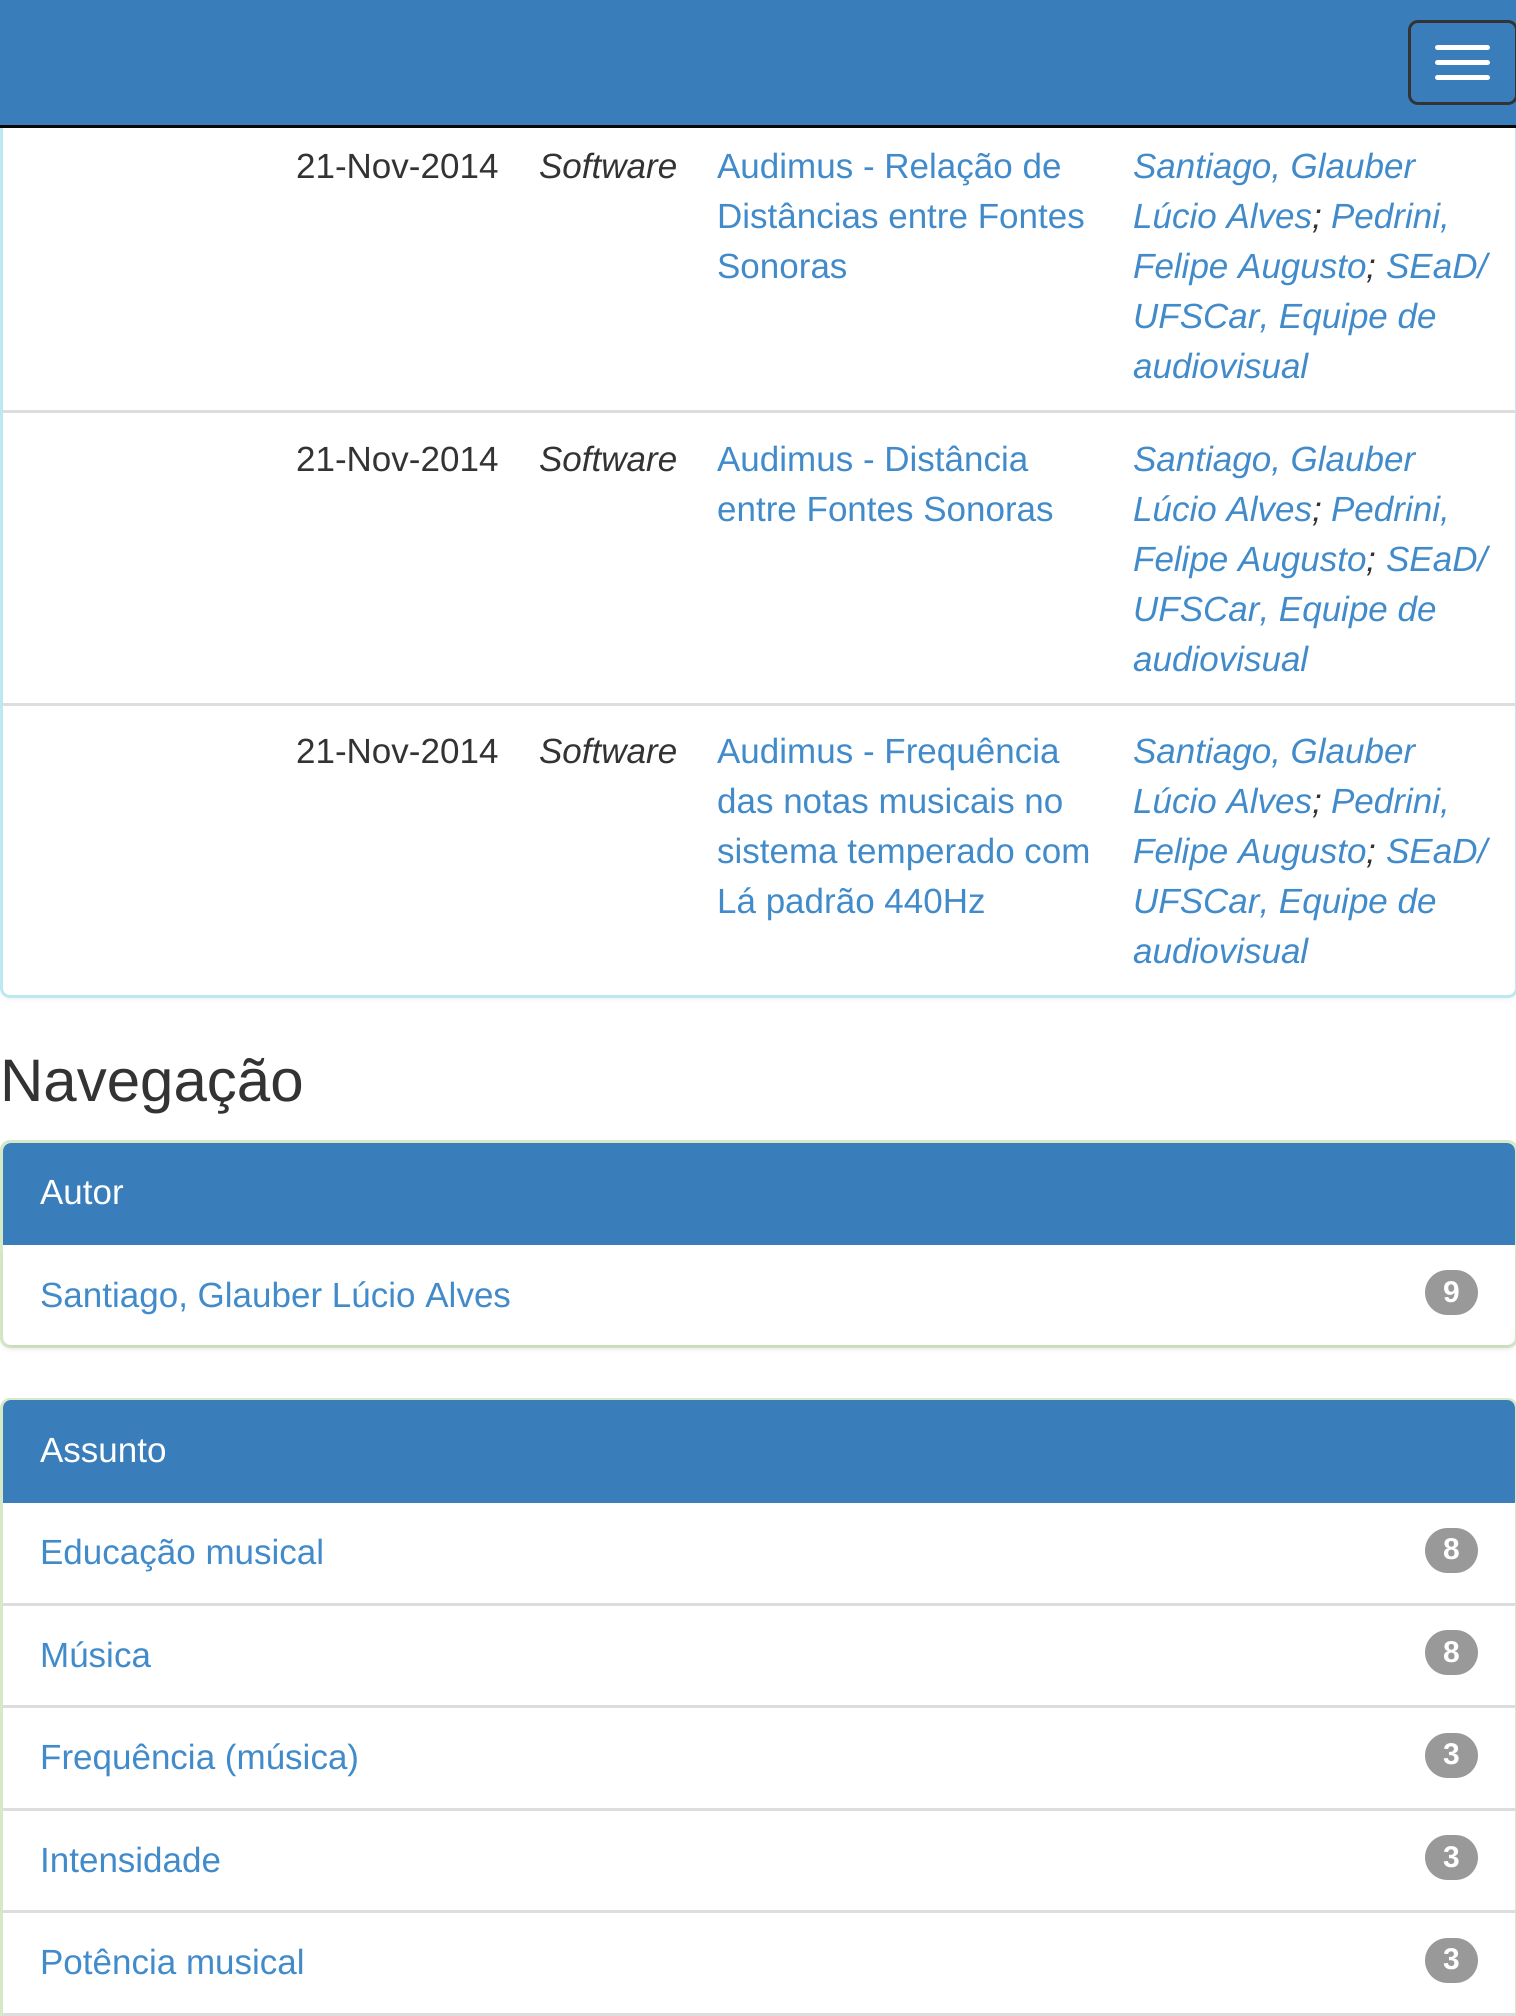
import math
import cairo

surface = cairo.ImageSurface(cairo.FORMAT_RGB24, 1516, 2016)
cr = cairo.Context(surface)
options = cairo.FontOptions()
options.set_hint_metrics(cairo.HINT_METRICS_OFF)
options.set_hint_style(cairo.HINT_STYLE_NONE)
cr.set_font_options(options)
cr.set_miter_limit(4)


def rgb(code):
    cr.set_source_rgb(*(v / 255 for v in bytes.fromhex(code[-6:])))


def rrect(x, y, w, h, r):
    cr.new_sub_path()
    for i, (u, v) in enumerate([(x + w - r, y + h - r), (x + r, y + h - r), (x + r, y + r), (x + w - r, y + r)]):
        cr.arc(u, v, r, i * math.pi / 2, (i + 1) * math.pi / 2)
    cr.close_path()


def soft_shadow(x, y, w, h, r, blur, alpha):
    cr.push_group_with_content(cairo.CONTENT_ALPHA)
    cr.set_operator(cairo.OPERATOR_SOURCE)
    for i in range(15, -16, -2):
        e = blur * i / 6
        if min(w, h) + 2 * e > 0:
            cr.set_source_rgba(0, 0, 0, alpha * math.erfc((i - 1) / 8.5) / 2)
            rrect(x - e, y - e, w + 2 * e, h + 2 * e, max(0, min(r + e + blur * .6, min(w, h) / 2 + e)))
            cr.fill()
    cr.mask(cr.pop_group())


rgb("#ffffff")
cr.paint()
rgb("#000000")
soft_shadow(0, -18, 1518, 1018, 10, 2.5, 0.05)
rgb("#ffffff")
rrect(1.5, -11.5, 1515, 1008, 8.5)
cr.fill_preserve()
rgb("#bce8f1")
cr.set_line_width(3)
cr.stroke()
rgb("#397eba")
cr.rectangle(0, 0, 1516, 125)
cr.fill()
rgb("#080808")
cr.rectangle(0, 125, 1516, 3)
cr.fill()
rrect(1409.5, 21.5, 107, 82, 8.5)
rgb("#333333")
cr.stroke()
rgb("#ffffff")
rrect(1435, 45, 55, 5, 2.5)
cr.fill()
rrect(1435, 60, 55, 5, 2.5)
cr.fill()
rrect(1435, 75, 55, 5, 2.5)
cr.fill()
rgb("#dddddd")
cr.rectangle(3, 410, 1513, 3)
cr.fill()
cr.rectangle(3, 703, 1513, 3)
cr.fill()
rgb("#000000")
soft_shadow(0, 1143, 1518, 207, 10, 2.5, 0.05)
rgb("#ffffff")
rrect(1.5, 1141.5, 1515, 205, 8.5)
cr.fill_preserve()
rgb("#d6e9c6")
cr.stroke()
rgb("#397eba")
cr.new_path()
cr.move_to(11, 1143)
cr.line_to(1507, 1143)
cr.curve_to(1511.5, 1143, 1515, 1146.5, 1515, 1151)
cr.line_to(1515, 1245)
cr.line_to(3, 1245)
cr.line_to(3, 1151)
cr.curve_to(3, 1146.5, 6.5, 1143, 11, 1143)
cr.close_path()
cr.fill()
rgb("#000000")
soft_shadow(3, 1248, 1512, 100, 10, 2.5, 0.07)
rgb("#ffffff")
cr.new_path()
cr.move_to(3, 1245)
cr.line_to(1515, 1245)
cr.line_to(1515, 1335)
cr.curve_to(1515, 1340.5, 1510.5, 1345, 1505, 1345)
cr.line_to(13, 1345)
cr.curve_to(7.5, 1345, 3, 1340.5, 3, 1335)
cr.close_path()
cr.fill()
rgb("#999999")
rrect(1425, 1270, 53, 45, 22.5)
cr.fill()
rrect(1.5, 1399.5, 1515, 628, 8.5)
rgb("#d6e9c6")
cr.stroke()
rgb("#397eba")
cr.new_path()
cr.move_to(11, 1400)
cr.line_to(1507, 1400)
cr.curve_to(1511.5, 1400, 1515, 1403.5, 1515, 1408)
cr.line_to(1515, 1503)
cr.line_to(3, 1503)
cr.line_to(3, 1408)
cr.curve_to(3, 1403.5, 6.5, 1400, 11, 1400)
cr.close_path()
cr.fill()
rgb("#999999")
rrect(1425, 1528, 53, 45, 22.5)
cr.fill()
rgb("#dddddd")
cr.rectangle(3, 1603, 1512, 3)
cr.fill()
cr.rectangle(3, 1705, 1512, 3)
cr.fill()
rgb("#999999")
rrect(1425, 1630, 53, 45, 22.5)
cr.fill()
rrect(1425, 1733, 53, 45, 22.5)
cr.fill()
rgb("#dddddd")
cr.rectangle(3, 1808, 1512, 3)
cr.fill()
cr.rectangle(3, 1910, 1512, 3)
cr.fill()
rgb("#999999")
rrect(1425, 1835, 53, 45, 22.5)
cr.fill()
rrect(1425, 1938, 53, 45, 22.5)
cr.fill()
rgb("#dddddd")
cr.rectangle(3, 2013, 1512, 3)
cr.fill()
cr.select_font_face("Liberation Sans")
cr.set_font_size(35)
rgb("#333333")
cr.move_to(296, 178)
cr.show_text("21-Nov-2014")
cr.select_font_face("Liberation Sans", cairo.FONT_SLANT_ITALIC)
cr.move_to(539, 178)
cr.show_text("Software")
cr.select_font_face("Liberation Sans")
rgb("#428bca")
for x, y, s in [
    (717, 178, "Audimus - Relação de"),
    (717, 228, "Distâncias entre Fontes"),
    (717, 278, "Sonoras"),
]:
    cr.move_to(x, y)
    cr.show_text(s)
cr.select_font_face("Liberation Sans", cairo.FONT_SLANT_ITALIC)
cr.move_to(1133, 178)
cr.show_text("Santiago, Glauber")
cr.move_to(1133, 228)
cr.show_text("Lúcio Alves")
rgb("#333333")
cr.move_to(1312, 228)
cr.show_text(";")
rgb("#428bca")
cr.move_to(1331, 228)
cr.show_text("Pedrini,")
cr.move_to(1133, 278)
cr.show_text("Felipe Augusto")
rgb("#333333")
cr.move_to(1366, 278)
cr.show_text(";")
rgb("#428bca")
for x, y, s in [
    (1386, 278, "SEaD/"),
    (1133, 328, "UFSCar, Equipe de"),
    (1133, 378, "audiovisual"),
]:
    cr.move_to(x, y)
    cr.show_text(s)
cr.select_font_face("Liberation Sans")
rgb("#333333")
cr.move_to(296, 471)
cr.show_text("21-Nov-2014")
cr.select_font_face("Liberation Sans", cairo.FONT_SLANT_ITALIC)
cr.move_to(539, 471)
cr.show_text("Software")
cr.select_font_face("Liberation Sans")
rgb("#428bca")
cr.move_to(717, 471)
cr.show_text("Audimus - Distância")
cr.move_to(717, 521)
cr.show_text("entre Fontes Sonoras")
cr.select_font_face("Liberation Sans", cairo.FONT_SLANT_ITALIC)
cr.move_to(1133, 471)
cr.show_text("Santiago, Glauber")
cr.move_to(1133, 521)
cr.show_text("Lúcio Alves")
rgb("#333333")
cr.move_to(1312, 521)
cr.show_text(";")
rgb("#428bca")
cr.move_to(1331, 521)
cr.show_text("Pedrini,")
cr.move_to(1133, 571)
cr.show_text("Felipe Augusto")
rgb("#333333")
cr.move_to(1366, 571)
cr.show_text(";")
rgb("#428bca")
for x, y, s in [
    (1386, 571, "SEaD/"),
    (1133, 621, "UFSCar, Equipe de"),
    (1133, 671, "audiovisual"),
]:
    cr.move_to(x, y)
    cr.show_text(s)
cr.select_font_face("Liberation Sans")
rgb("#333333")
cr.move_to(296, 763)
cr.show_text("21-Nov-2014")
cr.select_font_face("Liberation Sans", cairo.FONT_SLANT_ITALIC)
cr.move_to(539, 763)
cr.show_text("Software")
cr.select_font_face("Liberation Sans")
rgb("#428bca")
for x, y, s in [
    (717, 763, "Audimus - Frequência"),
    (717, 813, "das notas musicais no"),
    (717, 863, "sistema temperado com"),
    (717, 913, "Lá padrão 440Hz"),
]:
    cr.move_to(x, y)
    cr.show_text(s)
cr.select_font_face("Liberation Sans", cairo.FONT_SLANT_ITALIC)
cr.move_to(1133, 763)
cr.show_text("Santiago, Glauber")
cr.move_to(1133, 813)
cr.show_text("Lúcio Alves")
rgb("#333333")
cr.move_to(1312, 813)
cr.show_text(";")
rgb("#428bca")
cr.move_to(1331, 813)
cr.show_text("Pedrini,")
cr.move_to(1133, 863)
cr.show_text("Felipe Augusto")
rgb("#333333")
cr.move_to(1366, 863)
cr.show_text(";")
rgb("#428bca")
for x, y, s in [
    (1386, 863, "SEaD/"),
    (1133, 913, "UFSCar, Equipe de"),
    (1133, 963, "audiovisual"),
]:
    cr.move_to(x, y)
    cr.show_text(s)
cr.select_font_face("Liberation Sans")
cr.set_font_size(60)
rgb("#333333")
cr.move_to(0, 1101)
cr.show_text("Navegação")
cr.set_font_size(35)
rgb("#ffffff")
cr.move_to(40, 1204)
cr.show_text("Autor")
rgb("#428bca")
cr.move_to(40, 1307)
cr.show_text("Santiago, Glauber Lúcio Alves")
cr.select_font_face("Liberation Sans", cairo.FONT_SLANT_NORMAL, cairo.FONT_WEIGHT_BOLD)
cr.set_font_size(30)
rgb("#ffffff")
cr.move_to(1443, 1302)
cr.show_text("9")
cr.select_font_face("Liberation Sans")
cr.set_font_size(35)
cr.move_to(40, 1462)
cr.show_text("Assunto")
rgb("#428bca")
cr.move_to(40, 1564)
cr.show_text("Educação musical")
cr.select_font_face("Liberation Sans", cairo.FONT_SLANT_NORMAL, cairo.FONT_WEIGHT_BOLD)
cr.set_font_size(30)
rgb("#ffffff")
cr.move_to(1443, 1559)
cr.show_text("8")
cr.select_font_face("Liberation Sans")
cr.set_font_size(35)
rgb("#428bca")
cr.move_to(40, 1667)
cr.show_text("Música")
cr.select_font_face("Liberation Sans", cairo.FONT_SLANT_NORMAL, cairo.FONT_WEIGHT_BOLD)
cr.set_font_size(30)
rgb("#ffffff")
cr.move_to(1443, 1662)
cr.show_text("8")
cr.select_font_face("Liberation Sans")
cr.set_font_size(35)
rgb("#428bca")
cr.move_to(40, 1769)
cr.show_text("Frequência (música)")
cr.select_font_face("Liberation Sans", cairo.FONT_SLANT_NORMAL, cairo.FONT_WEIGHT_BOLD)
cr.set_font_size(30)
rgb("#ffffff")
cr.move_to(1443, 1764)
cr.show_text("3")
cr.select_font_face("Liberation Sans")
cr.set_font_size(35)
rgb("#428bca")
cr.move_to(40, 1872)
cr.show_text("Intensidade")
cr.select_font_face("Liberation Sans", cairo.FONT_SLANT_NORMAL, cairo.FONT_WEIGHT_BOLD)
cr.set_font_size(30)
rgb("#ffffff")
cr.move_to(1443, 1867)
cr.show_text("3")
cr.select_font_face("Liberation Sans")
cr.set_font_size(35)
rgb("#428bca")
cr.move_to(40, 1974)
cr.show_text("Potência musical")
cr.select_font_face("Liberation Sans", cairo.FONT_SLANT_NORMAL, cairo.FONT_WEIGHT_BOLD)
cr.set_font_size(30)
rgb("#ffffff")
cr.move_to(1443, 1969)
cr.show_text("3")
surface.write_to_png("page.png")
